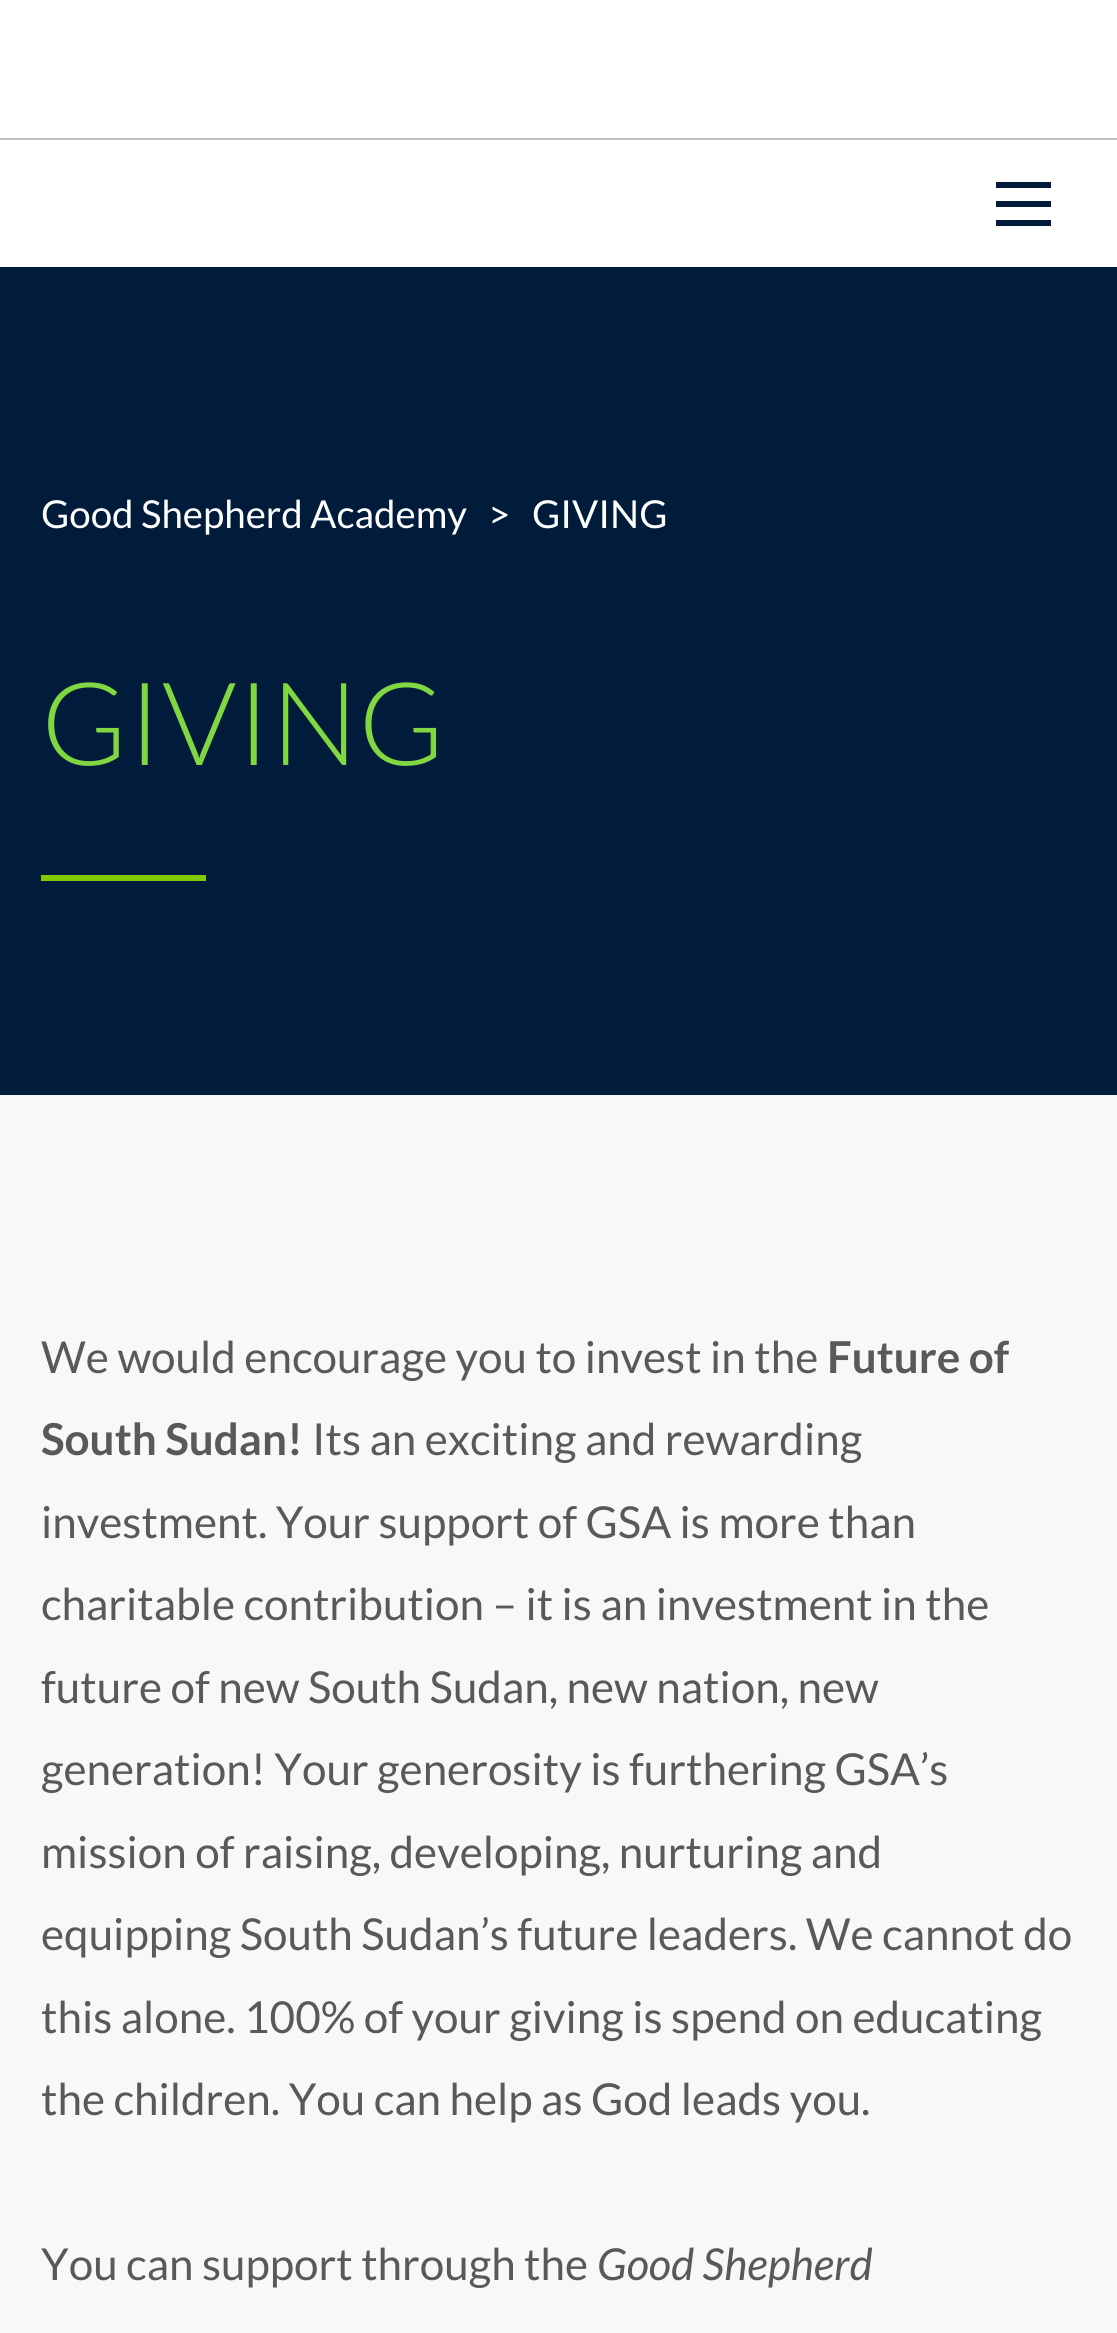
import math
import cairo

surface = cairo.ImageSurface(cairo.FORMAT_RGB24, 1117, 2333)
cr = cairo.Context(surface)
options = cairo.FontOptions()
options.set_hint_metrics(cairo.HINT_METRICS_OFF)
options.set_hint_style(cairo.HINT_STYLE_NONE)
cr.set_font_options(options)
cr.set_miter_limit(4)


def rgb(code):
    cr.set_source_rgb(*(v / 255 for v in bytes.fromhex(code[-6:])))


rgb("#f8f8f8")
cr.paint()
for x, y, w, h, color in [
    (0, 0, 1117, 138, "#ffffff"),
    (0, 138, 1117, 2, "#bfbfbf"),
    (0, 140, 1117, 127, "#ffffff"),
    (996, 201, 55, 6, "#011b3a"),
    (996, 182, 55, 6, "#011b3a"),
    (996, 220, 55, 6, "#011b3a"),
    (0, 267, 1117, 828, "#011b3a"),
    (41, 875, 165, 6, "#81ca00"),
]:
    rgb(color)
    cr.rectangle(x, y, w, h)
    cr.fill()
cr.select_font_face("Lato")
cr.set_font_size(38.5)
rgb("#ffffff")
for x, y, s in [
    (41, 528, "Good Shepherd Academy"),
    (488, 528, ">"),
    (532, 528, "GIVING"),
]:
    cr.move_to(x, y)
    cr.show_text(s)
cr.select_font_face("Lato Light")
cr.set_font_size(115.5)
rgb("#81d742")
cr.move_to(41, 765)
cr.show_text("GIVING")
cr.select_font_face("Lato")
cr.set_font_size(44)
rgb("#595959")
cr.move_to(41, 1373)
cr.show_text("We would encourage you to invest in the")
cr.select_font_face("Lato", cairo.FONT_SLANT_NORMAL, cairo.FONT_WEIGHT_BOLD)
cr.move_to(827, 1373)
cr.show_text("Future of")
cr.move_to(41, 1455)
cr.show_text("South Sudan!")
cr.select_font_face("Lato")
for x, y, s in [
    (312, 1455, "Its an exciting and rewarding"),
    (41, 1538, "investment. Your support of GSA is more than"),
    (41, 1620, "charitable contribution – it is an investment in the"),
    (41, 1703, "future of new South Sudan, new nation, new"),
    (41, 1785, "generation! Your generosity is furthering GSA’s"),
    (41, 1868, "mission of raising, developing, nurturing and"),
    (41, 1950, "equipping South Sudan’s future leaders. We cannot do"),
    (41, 2033, "this alone. 100% of your giving is spend on educating"),
    (41, 2115, "the children. You can help as God leads you."),
    (41, 2280, "You can support through the"),
]:
    cr.move_to(x, y)
    cr.show_text(s)
cr.select_font_face("Lato", cairo.FONT_SLANT_ITALIC)
cr.move_to(597, 2280)
cr.show_text("Good Shepherd")
surface.write_to_png("page.png")
